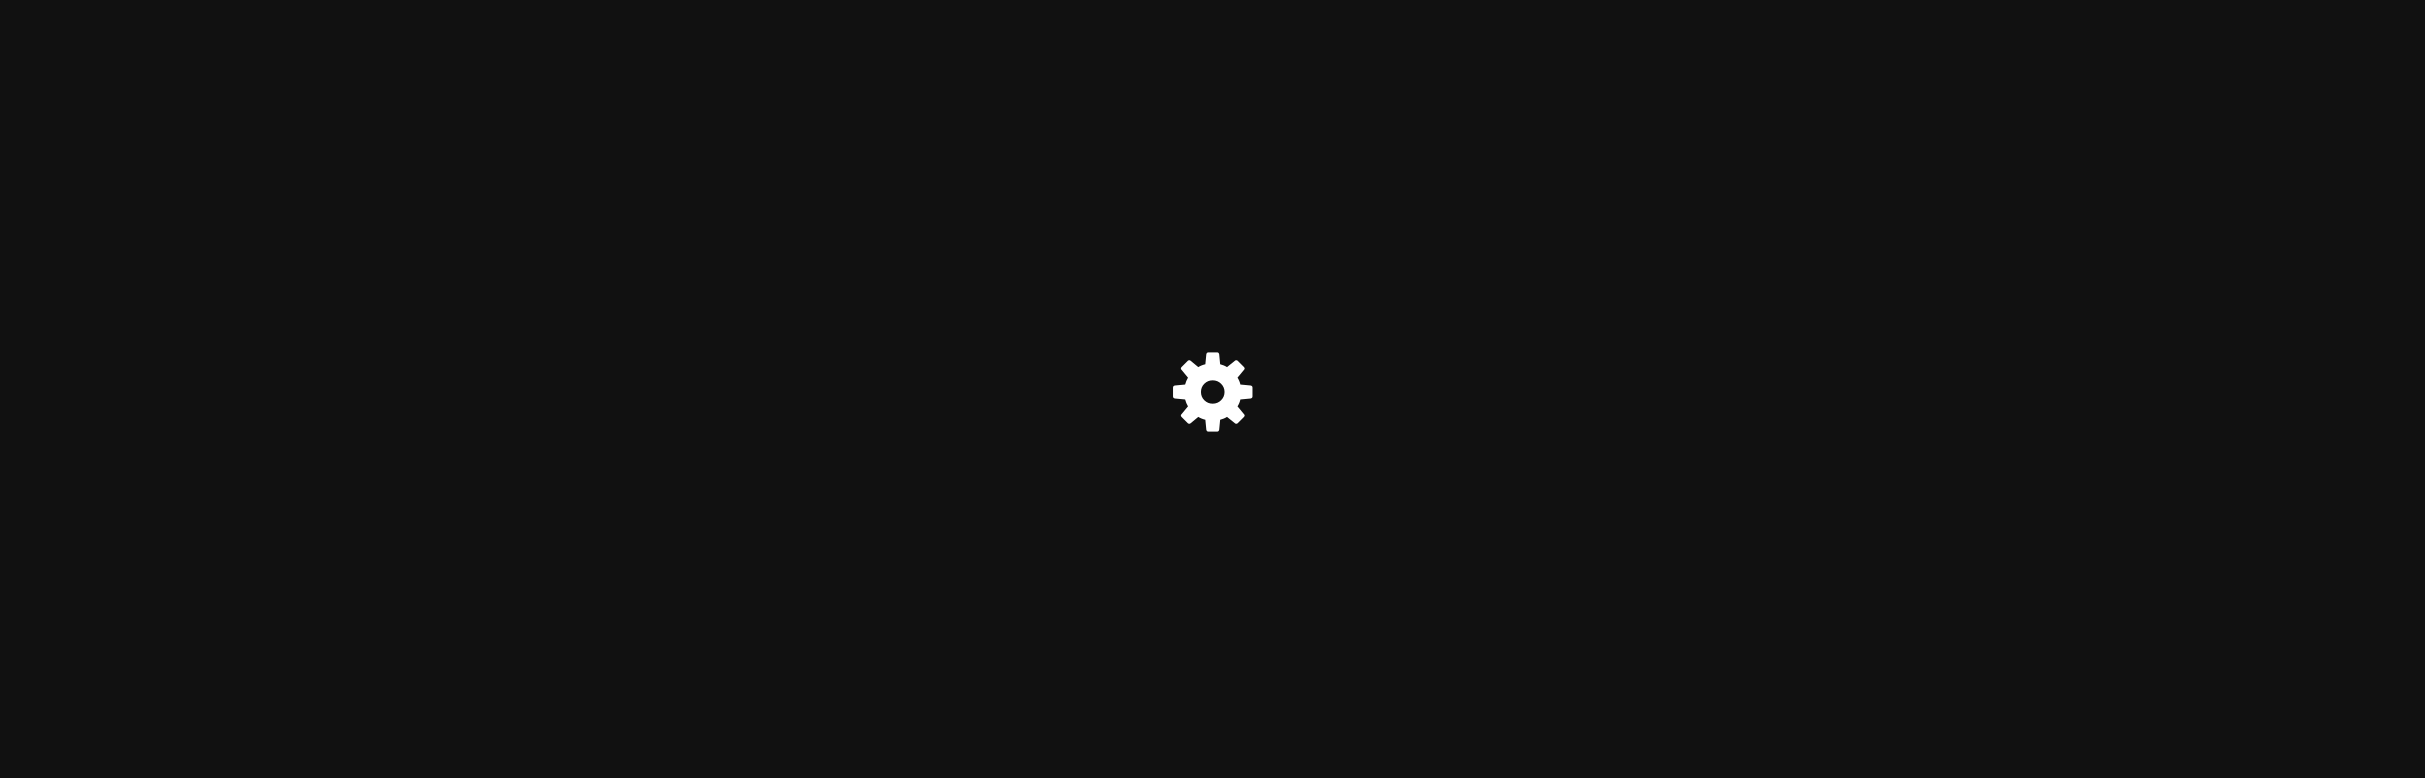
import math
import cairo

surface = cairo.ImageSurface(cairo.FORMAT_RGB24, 2425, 778)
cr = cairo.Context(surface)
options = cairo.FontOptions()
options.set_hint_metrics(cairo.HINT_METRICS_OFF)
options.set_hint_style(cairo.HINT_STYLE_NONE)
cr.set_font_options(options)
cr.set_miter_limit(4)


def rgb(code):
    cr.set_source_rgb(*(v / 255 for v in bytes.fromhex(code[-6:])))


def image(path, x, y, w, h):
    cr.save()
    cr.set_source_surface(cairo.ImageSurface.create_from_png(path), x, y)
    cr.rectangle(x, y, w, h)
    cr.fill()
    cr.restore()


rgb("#111111")
cr.paint()
image("img/1.png", 1173, 352, 80, 80)
surface.write_to_png("page.png")
